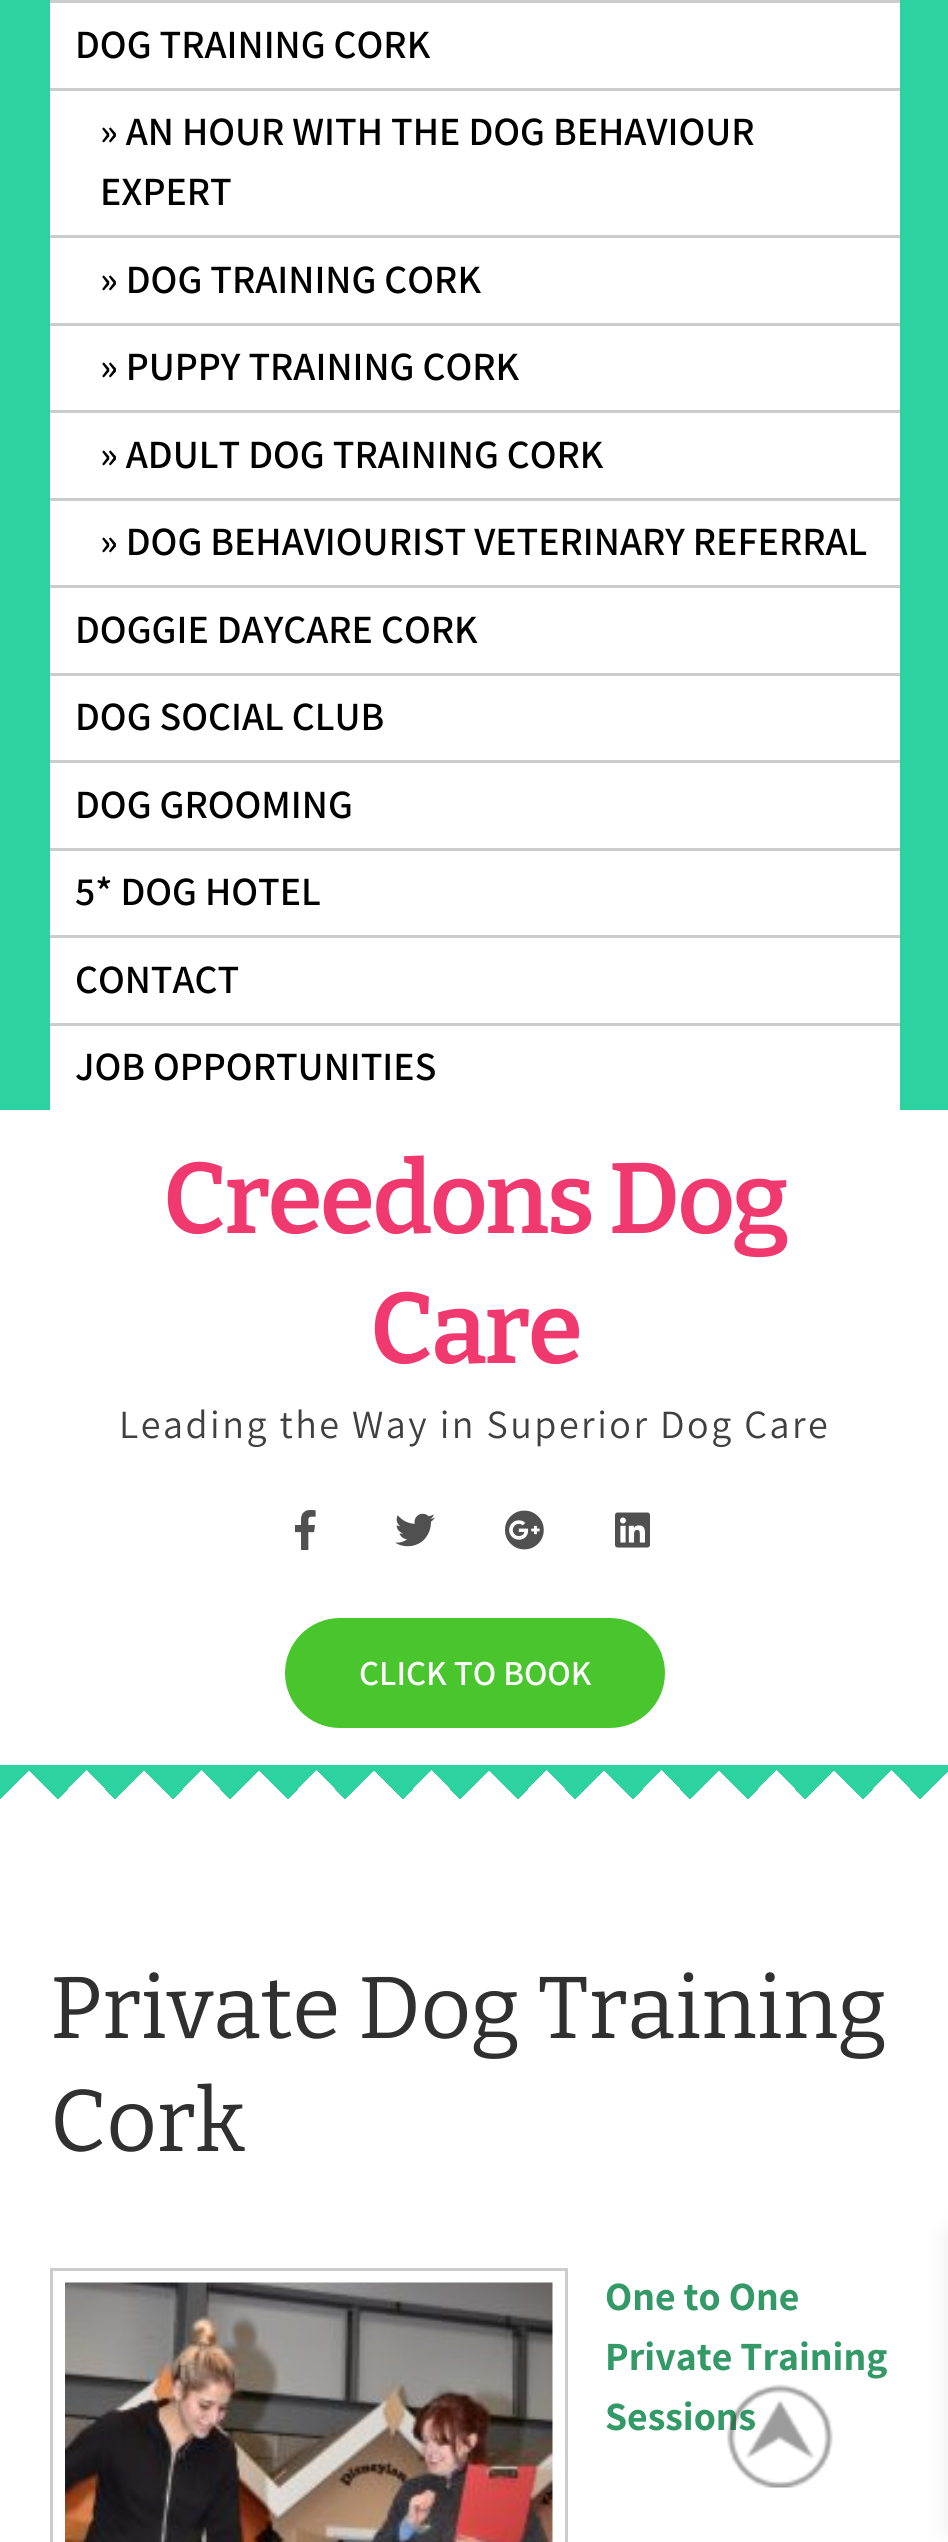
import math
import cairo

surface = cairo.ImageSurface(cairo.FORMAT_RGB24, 948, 2542)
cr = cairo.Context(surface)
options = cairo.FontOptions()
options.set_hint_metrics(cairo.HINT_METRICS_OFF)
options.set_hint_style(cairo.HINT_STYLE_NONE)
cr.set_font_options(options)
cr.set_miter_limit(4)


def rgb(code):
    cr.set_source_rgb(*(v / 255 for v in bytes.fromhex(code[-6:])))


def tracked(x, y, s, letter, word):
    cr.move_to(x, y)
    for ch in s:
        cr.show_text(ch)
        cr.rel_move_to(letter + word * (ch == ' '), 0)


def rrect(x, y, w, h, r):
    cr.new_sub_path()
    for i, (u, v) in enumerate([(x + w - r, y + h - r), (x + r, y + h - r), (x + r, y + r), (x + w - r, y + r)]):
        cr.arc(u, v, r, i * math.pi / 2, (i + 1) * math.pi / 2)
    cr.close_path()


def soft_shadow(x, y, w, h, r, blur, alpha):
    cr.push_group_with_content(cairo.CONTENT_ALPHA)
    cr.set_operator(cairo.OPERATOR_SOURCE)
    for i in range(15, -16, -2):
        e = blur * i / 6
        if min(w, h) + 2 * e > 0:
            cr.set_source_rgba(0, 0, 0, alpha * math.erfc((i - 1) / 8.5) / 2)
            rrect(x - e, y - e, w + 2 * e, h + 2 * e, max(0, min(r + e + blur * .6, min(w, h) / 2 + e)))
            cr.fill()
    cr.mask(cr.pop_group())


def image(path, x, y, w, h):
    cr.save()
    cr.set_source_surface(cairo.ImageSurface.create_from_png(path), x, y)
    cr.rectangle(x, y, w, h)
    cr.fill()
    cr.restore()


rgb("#ffffff")
cr.paint()
for x, y, w, h, color in [
    (0, 0, 948, 1110, "#2cd3a1"),
    (50, 3, 850, 1107, "#ffffff"),
    (50, 0, 850, 3, "#cccccc"),
    (50, 88, 850, 3, "#cccccc"),
    (50, 235, 850, 3, "#cccccc"),
    (50, 323, 850, 3, "#cccccc"),
    (50, 410, 850, 3, "#cccccc"),
    (50, 498, 850, 3, "#cccccc"),
    (50, 585, 850, 3, "#cccccc"),
    (50, 673, 850, 3, "#cccccc"),
    (50, 760, 850, 3, "#cccccc"),
    (50, 848, 850, 3, "#cccccc"),
    (50, 935, 850, 3, "#cccccc"),
    (50, 1023, 850, 3, "#cccccc"),
]:
    rgb(color)
    cr.rectangle(x, y, w, h)
    cr.fill()
image("img/1.png", 295, 1510, 21, 40)
image("img/2.png", 395, 1513, 40, 34)
image("img/3.png", 505, 1510, 39, 40)
image("img/4.png", 615, 1512, 35, 36)
rgb("#49c62d")
rrect(285, 1618, 380, 110, 55)
cr.fill()
gradient = cairo.LinearGradient(-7.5, 1815, 65, 1743)
gradient.add_color_stop_rgba(0.56, 1, 1, 1, 1)
gradient.add_color_stop_rgba(0.56, 0.173, 0.827, 0.631, 1)
cr.set_source(gradient)
cr.rectangle(24, 1765, 34, 34)
cr.fill()
gradient = cairo.LinearGradient(50, 1815, 123, 1743)
gradient.add_color_stop_rgba(0.56, 1, 1, 1, 1)
gradient.add_color_stop_rgba(0.56, 0.173, 0.827, 0.631, 1)
cr.set_source(gradient)
cr.rectangle(82, 1765, 33, 34)
cr.fill()
gradient = cairo.LinearGradient(108, 1815, 180, 1743)
gradient.add_color_stop_rgba(0.56, 1, 1, 1, 1)
gradient.add_color_stop_rgba(0.56, 0.173, 0.827, 0.631, 1)
cr.set_source(gradient)
cr.rectangle(139, 1765, 34, 34)
cr.fill()
gradient = cairo.LinearGradient(165, 1815, 238, 1743)
gradient.add_color_stop_rgba(0.56, 1, 1, 1, 1)
gradient.add_color_stop_rgba(0.56, 0.173, 0.827, 0.631, 1)
cr.set_source(gradient)
cr.rectangle(197, 1765, 33, 34)
cr.fill()
gradient = cairo.LinearGradient(223, 1815, 295, 1743)
gradient.add_color_stop_rgba(0.56, 1, 1, 1, 1)
gradient.add_color_stop_rgba(0.56, 0.173, 0.827, 0.631, 1)
cr.set_source(gradient)
cr.rectangle(254, 1765, 34, 34)
cr.fill()
gradient = cairo.LinearGradient(280, 1815, 353, 1743)
gradient.add_color_stop_rgba(0.56, 1, 1, 1, 1)
gradient.add_color_stop_rgba(0.56, 0.173, 0.827, 0.631, 1)
cr.set_source(gradient)
cr.rectangle(312, 1765, 33, 34)
cr.fill()
gradient = cairo.LinearGradient(338, 1815, 410, 1743)
gradient.add_color_stop_rgba(0.56, 1, 1, 1, 1)
gradient.add_color_stop_rgba(0.56, 0.173, 0.827, 0.631, 1)
cr.set_source(gradient)
cr.rectangle(369, 1765, 34, 34)
cr.fill()
gradient = cairo.LinearGradient(395, 1815, 468, 1743)
gradient.add_color_stop_rgba(0.56, 1, 1, 1, 1)
gradient.add_color_stop_rgba(0.56, 0.173, 0.827, 0.631, 1)
cr.set_source(gradient)
cr.rectangle(427, 1765, 33, 34)
cr.fill()
gradient = cairo.LinearGradient(453, 1815, 525, 1743)
gradient.add_color_stop_rgba(0.56, 1, 1, 1, 1)
gradient.add_color_stop_rgba(0.56, 0.173, 0.827, 0.631, 1)
cr.set_source(gradient)
cr.rectangle(484, 1765, 34, 34)
cr.fill()
gradient = cairo.LinearGradient(510, 1815, 583, 1743)
gradient.add_color_stop_rgba(0.56, 1, 1, 1, 1)
gradient.add_color_stop_rgba(0.56, 0.173, 0.827, 0.631, 1)
cr.set_source(gradient)
cr.rectangle(542, 1765, 33, 34)
cr.fill()
gradient = cairo.LinearGradient(568, 1815, 640, 1743)
gradient.add_color_stop_rgba(0.56, 1, 1, 1, 1)
gradient.add_color_stop_rgba(0.56, 0.173, 0.827, 0.631, 1)
cr.set_source(gradient)
cr.rectangle(599, 1765, 34, 34)
cr.fill()
gradient = cairo.LinearGradient(625, 1815, 698, 1743)
gradient.add_color_stop_rgba(0.56, 1, 1, 1, 1)
gradient.add_color_stop_rgba(0.56, 0.173, 0.827, 0.631, 1)
cr.set_source(gradient)
cr.rectangle(657, 1765, 33, 34)
cr.fill()
gradient = cairo.LinearGradient(683, 1815, 755, 1743)
gradient.add_color_stop_rgba(0.56, 1, 1, 1, 1)
gradient.add_color_stop_rgba(0.56, 0.173, 0.827, 0.631, 1)
cr.set_source(gradient)
cr.rectangle(714, 1765, 34, 34)
cr.fill()
gradient = cairo.LinearGradient(740, 1815, 813, 1743)
gradient.add_color_stop_rgba(0.56, 1, 1, 1, 1)
gradient.add_color_stop_rgba(0.56, 0.173, 0.827, 0.631, 1)
cr.set_source(gradient)
cr.rectangle(772, 1765, 33, 34)
cr.fill()
gradient = cairo.LinearGradient(798, 1815, 870, 1743)
gradient.add_color_stop_rgba(0.56, 1, 1, 1, 1)
gradient.add_color_stop_rgba(0.56, 0.173, 0.827, 0.631, 1)
cr.set_source(gradient)
cr.rectangle(829, 1765, 34, 34)
cr.fill()
gradient = cairo.LinearGradient(855, 1815, 928, 1743)
gradient.add_color_stop_rgba(0.56, 1, 1, 1, 1)
gradient.add_color_stop_rgba(0.56, 0.173, 0.827, 0.631, 1)
cr.set_source(gradient)
cr.rectangle(887, 1765, 33, 34)
cr.fill()
gradient = cairo.LinearGradient(65, 1815, -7.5, 1743)
gradient.add_color_stop_rgba(0.56, 0.173, 0.827, 0.631, 0)
gradient.add_color_stop_rgba(0.56, 0.173, 0.827, 0.631, 1)
cr.set_source(gradient)
cr.rectangle(0, 1765, 29, 34)
cr.fill()
gradient = cairo.LinearGradient(123, 1815, 50, 1743)
gradient.add_color_stop_rgba(0.56, 0.173, 0.827, 0.631, 0)
gradient.add_color_stop_rgba(0.56, 0.173, 0.827, 0.631, 1)
cr.set_source(gradient)
cr.rectangle(58, 1765, 28, 34)
cr.fill()
gradient = cairo.LinearGradient(180, 1815, 108, 1743)
gradient.add_color_stop_rgba(0.56, 0.173, 0.827, 0.631, 0)
gradient.add_color_stop_rgba(0.56, 0.173, 0.827, 0.631, 1)
cr.set_source(gradient)
cr.rectangle(115, 1765, 29, 34)
cr.fill()
gradient = cairo.LinearGradient(238, 1815, 165, 1743)
gradient.add_color_stop_rgba(0.56, 0.173, 0.827, 0.631, 0)
gradient.add_color_stop_rgba(0.56, 0.173, 0.827, 0.631, 1)
cr.set_source(gradient)
cr.rectangle(173, 1765, 28, 34)
cr.fill()
gradient = cairo.LinearGradient(295, 1815, 223, 1743)
gradient.add_color_stop_rgba(0.56, 0.173, 0.827, 0.631, 0)
gradient.add_color_stop_rgba(0.56, 0.173, 0.827, 0.631, 1)
cr.set_source(gradient)
cr.rectangle(230, 1765, 29, 34)
cr.fill()
gradient = cairo.LinearGradient(353, 1815, 280, 1743)
gradient.add_color_stop_rgba(0.56, 0.173, 0.827, 0.631, 0)
gradient.add_color_stop_rgba(0.56, 0.173, 0.827, 0.631, 1)
cr.set_source(gradient)
cr.rectangle(288, 1765, 28, 34)
cr.fill()
gradient = cairo.LinearGradient(410, 1815, 338, 1743)
gradient.add_color_stop_rgba(0.56, 0.173, 0.827, 0.631, 0)
gradient.add_color_stop_rgba(0.56, 0.173, 0.827, 0.631, 1)
cr.set_source(gradient)
cr.rectangle(345, 1765, 29, 34)
cr.fill()
gradient = cairo.LinearGradient(468, 1815, 395, 1743)
gradient.add_color_stop_rgba(0.56, 0.173, 0.827, 0.631, 0)
gradient.add_color_stop_rgba(0.56, 0.173, 0.827, 0.631, 1)
cr.set_source(gradient)
cr.rectangle(403, 1765, 28, 34)
cr.fill()
gradient = cairo.LinearGradient(525, 1815, 453, 1743)
gradient.add_color_stop_rgba(0.56, 0.173, 0.827, 0.631, 0)
gradient.add_color_stop_rgba(0.56, 0.173, 0.827, 0.631, 1)
cr.set_source(gradient)
cr.rectangle(460, 1765, 29, 34)
cr.fill()
gradient = cairo.LinearGradient(583, 1815, 510, 1743)
gradient.add_color_stop_rgba(0.56, 0.173, 0.827, 0.631, 0)
gradient.add_color_stop_rgba(0.56, 0.173, 0.827, 0.631, 1)
cr.set_source(gradient)
cr.rectangle(518, 1765, 28, 34)
cr.fill()
gradient = cairo.LinearGradient(640, 1815, 568, 1743)
gradient.add_color_stop_rgba(0.56, 0.173, 0.827, 0.631, 0)
gradient.add_color_stop_rgba(0.56, 0.173, 0.827, 0.631, 1)
cr.set_source(gradient)
cr.rectangle(575, 1765, 29, 34)
cr.fill()
gradient = cairo.LinearGradient(698, 1815, 625, 1743)
gradient.add_color_stop_rgba(0.56, 0.173, 0.827, 0.631, 0)
gradient.add_color_stop_rgba(0.56, 0.173, 0.827, 0.631, 1)
cr.set_source(gradient)
cr.rectangle(633, 1765, 28, 34)
cr.fill()
gradient = cairo.LinearGradient(755, 1815, 683, 1743)
gradient.add_color_stop_rgba(0.56, 0.173, 0.827, 0.631, 0)
gradient.add_color_stop_rgba(0.56, 0.173, 0.827, 0.631, 1)
cr.set_source(gradient)
cr.rectangle(690, 1765, 29, 34)
cr.fill()
gradient = cairo.LinearGradient(813, 1815, 740, 1743)
gradient.add_color_stop_rgba(0.56, 0.173, 0.827, 0.631, 0)
gradient.add_color_stop_rgba(0.56, 0.173, 0.827, 0.631, 1)
cr.set_source(gradient)
cr.rectangle(748, 1765, 28, 34)
cr.fill()
gradient = cairo.LinearGradient(870, 1815, 798, 1743)
gradient.add_color_stop_rgba(0.56, 0.173, 0.827, 0.631, 0)
gradient.add_color_stop_rgba(0.56, 0.173, 0.827, 0.631, 1)
cr.set_source(gradient)
cr.rectangle(805, 1765, 29, 34)
cr.fill()
gradient = cairo.LinearGradient(928, 1815, 855, 1743)
gradient.add_color_stop_rgba(0.56, 0.173, 0.827, 0.631, 0)
gradient.add_color_stop_rgba(0.56, 0.173, 0.827, 0.631, 1)
cr.set_source(gradient)
cr.rectangle(863, 1765, 28, 34)
cr.fill()
gradient = cairo.LinearGradient(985, 1815, 913, 1743)
gradient.add_color_stop_rgba(0.56, 0.173, 0.827, 0.631, 0)
gradient.add_color_stop_rgba(0.56, 0.173, 0.827, 0.631, 1)
cr.set_source(gradient)
cr.rectangle(920, 1765, 28, 34)
cr.fill()
cr.rectangle(51.5, 2269.5, 515, 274)
rgb("#cccccc")
cr.set_line_width(3)
cr.stroke()
image("img/5.png", 65, 2282, 488, 260)
rgb("#000000")
soft_shadow(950, 2235, 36, 295, 0, 12.5, 0.1)
cr.select_font_face("Assistant SemiBold")
cr.set_font_size(40)
rgb("#000000")
for x, y, s in [
    (75, 58, "DOG TRAINING CORK"),
    (100, 145, "» AN HOUR WITH THE DOG BEHAVIOUR"),
    (100, 205, "EXPERT"),
    (100, 293, "» DOG TRAINING CORK"),
    (100, 380, "» PUPPY TRAINING CORK"),
    (100, 468, "» ADULT DOG TRAINING CORK"),
    (100, 555, "» DOG BEHAVIOURIST VETERINARY REFERRAL"),
    (75, 643, "DOGGIE DAYCARE CORK"),
    (75, 730, "DOG SOCIAL CLUB"),
    (75, 818, "DOG GROOMING"),
    (75, 905, "5* DOG HOTEL"),
    (75, 993, "CONTACT"),
    (75, 1080, "JOB OPPORTUNITIES"),
]:
    cr.move_to(x, y)
    cr.show_text(s)
cr.select_font_face("Bitter SemiBold")
cr.set_font_size(100)
rgb("#f0396e")
tracked(163, 1233, "Creedons Dog", -2.5, 0)
tracked(370, 1363, "Care", -2.5, 0)
cr.select_font_face("Assistant")
cr.set_font_size(40)
rgb("#404040")
tracked(119, 1438, "Leading the Way in Superior Dog Care", 2.5, 0)
cr.select_font_face("Assistant SemiBold")
cr.set_font_size(35)
rgb("#ffffff")
cr.move_to(359, 1685)
cr.show_text("CLICK TO BOOK")
cr.select_font_face("Bitter")
cr.set_font_size(87.5)
rgb("#303030")
cr.move_to(50, 2038)
cr.show_text("Private Dog Training")
cr.move_to(50, 2151)
cr.show_text("Cork")
cr.select_font_face("Assistant", cairo.FONT_SLANT_NORMAL, cairo.FONT_WEIGHT_BOLD)
cr.set_font_size(40)
rgb("#339966")
for x, y, s in [
    (605, 2310, "One to One"),
    (605, 2370, "Private Training"),
    (605, 2430, "Sessions"),
]:
    cr.move_to(x, y)
    cr.show_text(s)
image("img/6.png", 727, 2384, 106, 104)
surface.write_to_png("page.png")
